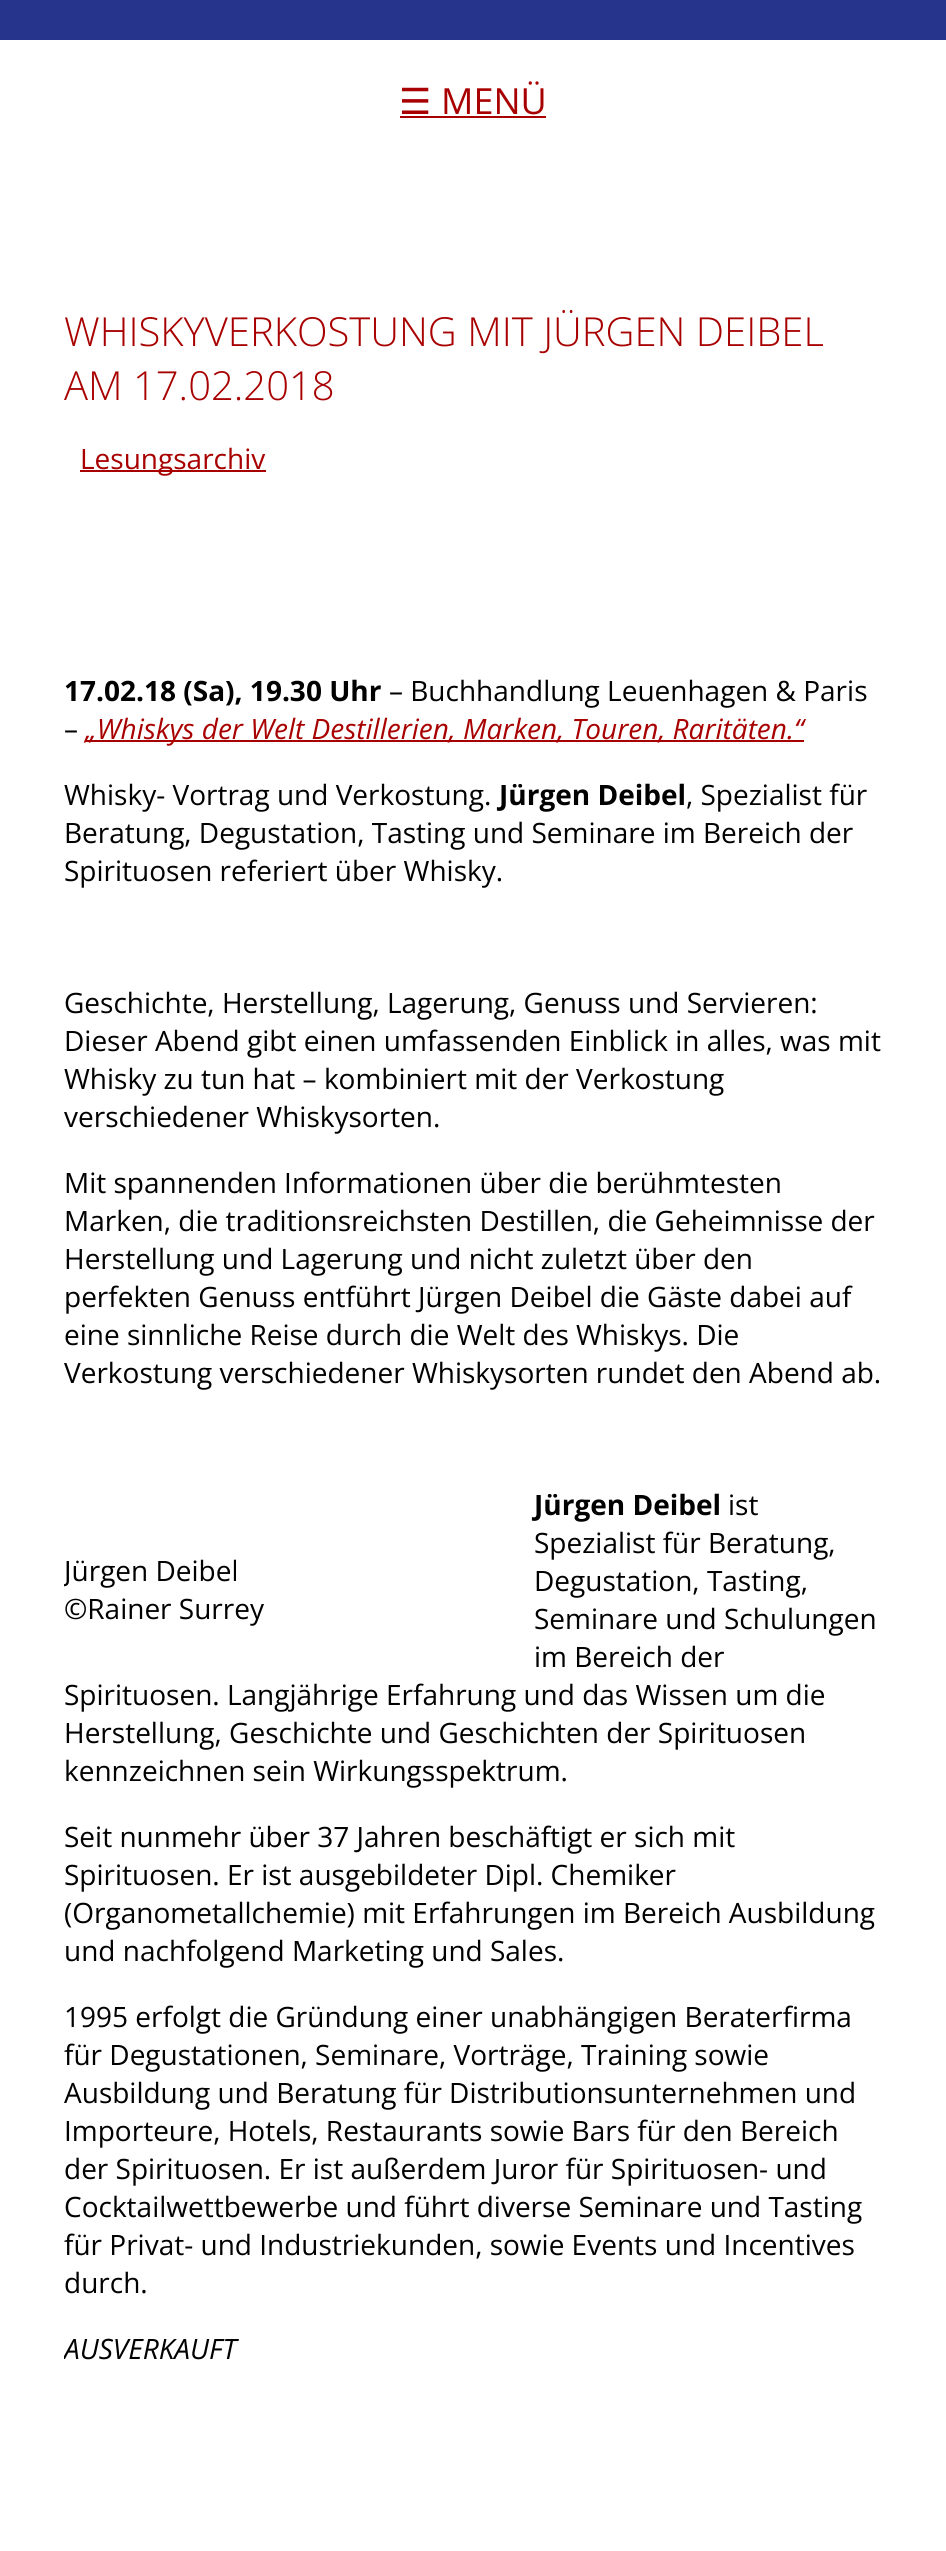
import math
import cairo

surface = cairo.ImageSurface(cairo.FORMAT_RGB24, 946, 2551)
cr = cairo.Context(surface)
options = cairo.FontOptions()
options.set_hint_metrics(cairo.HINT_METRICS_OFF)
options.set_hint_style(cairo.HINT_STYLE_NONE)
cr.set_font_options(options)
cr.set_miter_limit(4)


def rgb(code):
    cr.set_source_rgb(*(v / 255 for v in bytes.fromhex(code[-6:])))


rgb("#26348b")
cr.paint()
for x, y, w, h, color in [
    (0, 40, 946, 2511, "#ffffff"),
    (400, 116, 146, 2, "#a80000"),
    (80, 470, 186, 2, "#a80000"),
    (86, 740, 718, 2, "#a80000"),
]:
    rgb(color)
    cr.rectangle(x, y, w, h)
    cr.fill()
cr.select_font_face("DejaVu Sans")
cr.set_font_size(36)
cr.move_to(399, 114)
cr.show_text("☰")
cr.select_font_face("Open Sans")
cr.move_to(441, 114)
cr.show_text("MENÜ")
cr.select_font_face("Open Sans Light")
cr.set_font_size(40)
cr.move_to(64, 346)
cr.show_text("WHISKYVERKOSTUNG MIT JÜRGEN DEIBEL")
cr.move_to(64, 400)
cr.show_text("AM 17.02.2018")
cr.select_font_face("Open Sans")
cr.set_font_size(28)
cr.move_to(80, 469)
cr.show_text("Lesungsarchiv")
cr.select_font_face("Open Sans", cairo.FONT_SLANT_NORMAL, cairo.FONT_WEIGHT_BOLD)
rgb("#000000")
cr.move_to(64, 701)
cr.show_text("17.02.18 (Sa), 19.30 Uhr")
cr.select_font_face("Open Sans")
cr.move_to(389, 701)
cr.show_text("– Buchhandlung Leuenhagen & Paris")
cr.move_to(64, 739)
cr.show_text("–")
cr.select_font_face("Open Sans", cairo.FONT_SLANT_ITALIC)
rgb("#a80000")
cr.move_to(85, 739)
cr.show_text("„Whiskys der Welt Destillerien, Marken, Touren, Raritäten.“")
cr.select_font_face("Open Sans")
rgb("#000000")
cr.move_to(64, 805)
cr.show_text("Whisky- Vortrag und Verkostung.")
cr.select_font_face("Open Sans", cairo.FONT_SLANT_NORMAL, cairo.FONT_WEIGHT_BOLD)
cr.move_to(499, 805)
cr.show_text("Jürgen Deibel")
cr.select_font_face("Open Sans")
for x, y, s in [
    (686, 805, ", Spezialist für"),
    (64, 843, "Beratung, Degustation, Tasting und Seminare im Bereich der"),
    (64, 881, "Spirituosen referiert über Whisky."),
    (64, 1013, "Geschichte, Herstellung, Lagerung, Genuss und Servieren:"),
    (64, 1051, "Dieser Abend gibt einen umfassenden Einblick in alles, was mit"),
    (64, 1089, "Whisky zu tun hat – kombiniert mit der Verkostung"),
    (64, 1127, "verschiedener Whiskysorten."),
    (64, 1193, "Mit spannenden Informationen über die berühmtesten"),
    (64, 1231, "Marken, die traditionsreichsten Destillen, die Geheimnisse der"),
    (64, 1269, "Herstellung und Lagerung und nicht zuletzt über den"),
    (64, 1307, "perfekten Genuss entführt Jürgen Deibel die Gäste dabei auf"),
    (64, 1345, "eine sinnliche Reise durch die Welt des Whiskys. Die"),
    (64, 1383, "Verkostung verschiedener Whiskysorten rundet den Abend ab."),
]:
    cr.move_to(x, y)
    cr.show_text(s)
cr.select_font_face("Open Sans", cairo.FONT_SLANT_NORMAL, cairo.FONT_WEIGHT_BOLD)
cr.move_to(534, 1515)
cr.show_text("Jürgen Deibel")
cr.select_font_face("Open Sans")
for x, y, s in [
    (728, 1515, "ist"),
    (534, 1553, "Spezialist für Beratung,"),
    (534, 1591, "Degustation, Tasting,"),
    (534, 1629, "Seminare und Schulungen"),
    (534, 1667, "im Bereich der"),
    (64, 1705, "Spirituosen. Langjährige Erfahrung und das Wissen um die"),
    (64, 1743, "Herstellung, Geschichte und Geschichten der Spirituosen"),
    (64, 1781, "kennzeichnen sein Wirkungsspektrum."),
]:
    cr.move_to(x, y)
    cr.show_text(s)
cr.save()
cr.rectangle(64, 642, 818, 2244)
cr.clip()
cr.move_to(64, 1581)
cr.show_text("Jürgen Deibel")
cr.restore()
for x, y, s in [
    (64, 1619, "©Rainer Surrey"),
    (64, 1847, "Seit nunmehr über 37 Jahren beschäftigt er sich mit"),
    (64, 1885, "Spirituosen. Er ist ausgebildeter Dipl. Chemiker"),
    (64, 1923, "(Organometallchemie) mit Erfahrungen im Bereich Ausbildung"),
    (64, 1961, "und nachfolgend Marketing und Sales."),
    (64, 2027, "1995 erfolgt die Gründung einer unabhängigen Beraterfirma"),
    (64, 2065, "für Degustationen, Seminare, Vorträge, Training sowie"),
    (64, 2103, "Ausbildung und Beratung für Distributionsunternehmen und"),
    (64, 2141, "Importeure, Hotels, Restaurants sowie Bars für den Bereich"),
    (64, 2179, "der Spirituosen. Er ist außerdem Juror für Spirituosen- und"),
    (64, 2217, "Cocktailwettbewerbe und führt diverse Seminare und Tasting"),
    (64, 2255, "für Privat- und Industriekunden, sowie Events und Incentives"),
    (64, 2293, "durch."),
]:
    cr.move_to(x, y)
    cr.show_text(s)
cr.save()
cr.rectangle(64, 642, 818, 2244)
cr.clip()
cr.select_font_face("Open Sans", cairo.FONT_SLANT_ITALIC)
cr.move_to(64, 2359)
cr.show_text("AUSVERKAUFT")
cr.restore()
surface.write_to_png("page.png")
